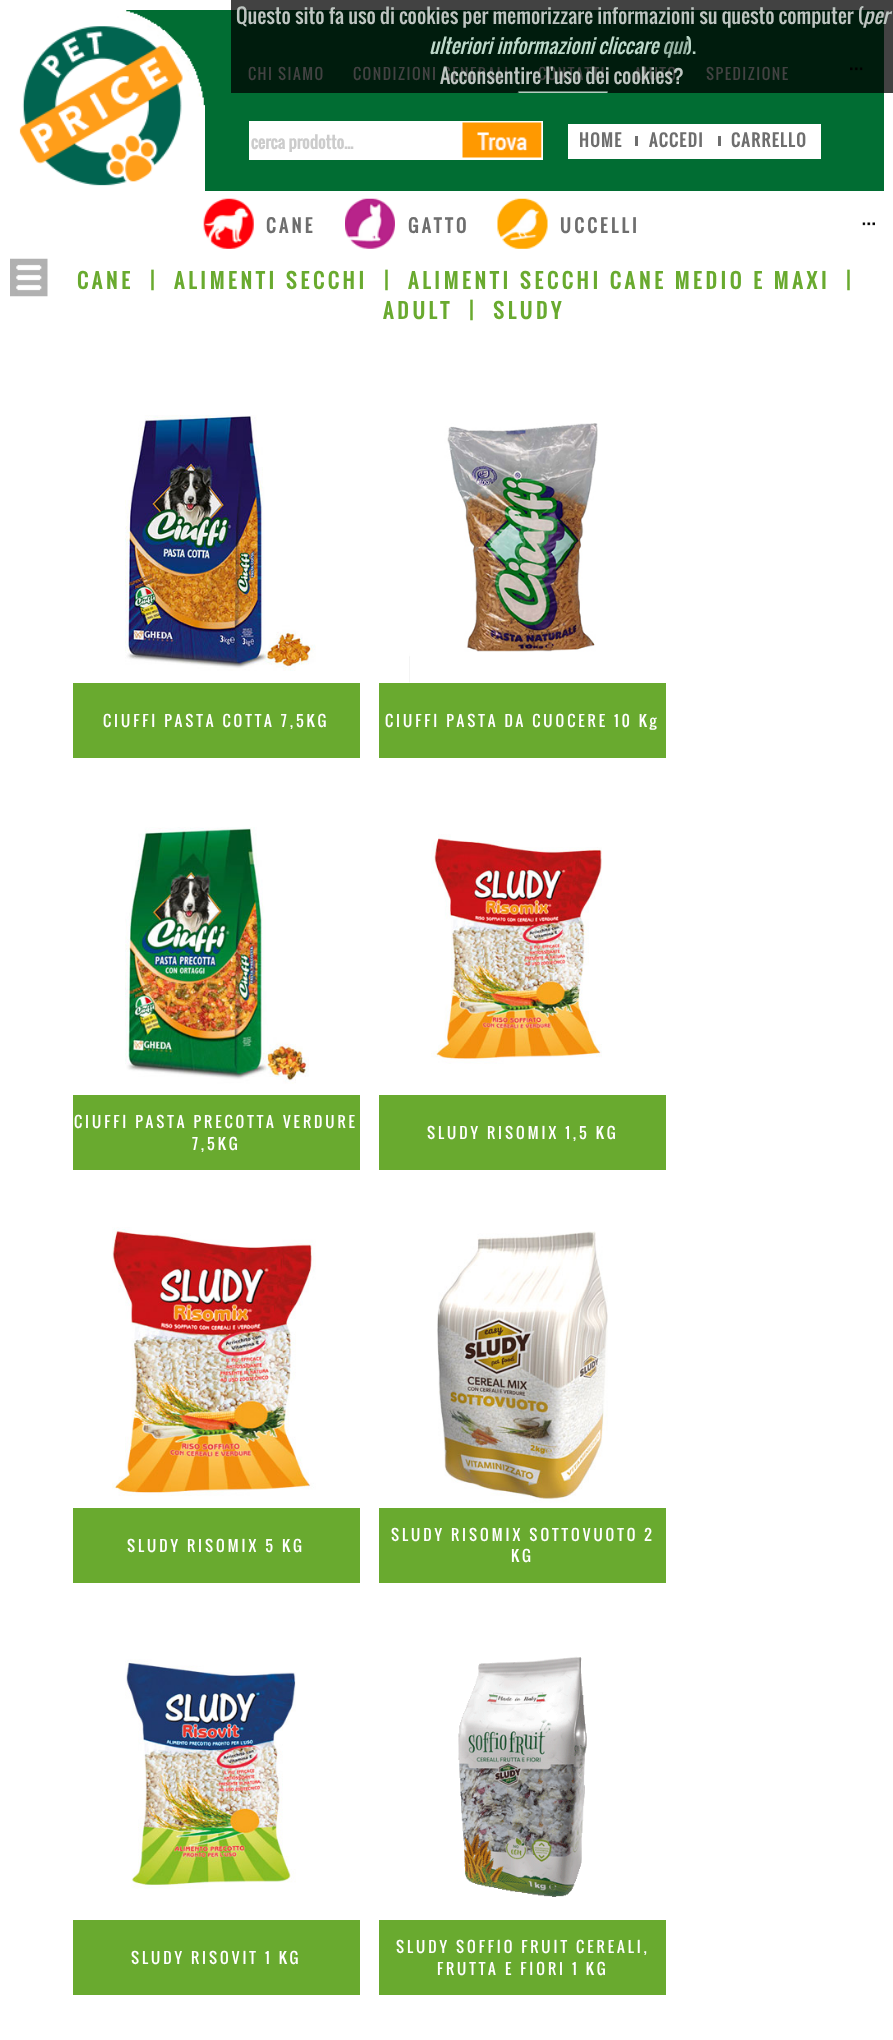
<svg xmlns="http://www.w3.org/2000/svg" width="893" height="2040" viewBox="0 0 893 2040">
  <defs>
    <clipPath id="clip1"><path d="M231 0h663v93H231z"/></clipPath>
  </defs>
  <rect width="100%" height="100%" fill="#fff"/>
  <path d="M231 0h662v93H231z" fill="#424242"/>
  <path d="M126 10h758v181H126z" fill="#016d33"/>
  <path d="M231 10h653v83H231z" fill="#001c0d"/>
  <path d="M518 92h90v1H518z" fill="#a6c1b2"/>
  <image x="517" y="92" width="90" height="1" href="img/1.png"/>
  <path d="M249 121h294v39H249z" fill="#fff"/>
  <image x="462" y="122" width="80" height="36" href="img/4.png"/>
  <path d="M568 124h253v35H568z" fill="#fff"/>
  <g clip-path="url(#clip1)">
    <path d="M518.5 91.5h89v33H518.5z" fill="none" stroke="#5e7a6b"/>
  </g>
  <image x="10" y="10" width="195" height="181" href="img/2.png"/>
  <image x="850" y="67" width="13" height="4" href="img/3.png"/>
  <path d="M635 136h3v10H635z" fill="#6e6e6e"/>
  <path d="M718 136h3v10H718z" fill="#6e6e6e"/>
  <image x="203" y="198" width="51" height="51" href="img/5.png"/>
  <image x="345" y="198" width="50" height="51" href="img/6.png"/>
  <image x="497" y="198" width="51" height="51" href="img/7.png"/>
  <image x="862" y="222" width="13" height="4" href="img/8.png"/>
  <image x="10" y="258" width="38" height="39" href="img/9.png"/>
  <image x="125" y="415" width="191" height="256" href="img/10.png"/>
  <path d="M73 683h287v75H73z" fill="#69aa2f"/>
  <image x="409" y="423" width="189" height="260" href="img/11.png"/>
  <path d="M379 683h287v75H379z" fill="#69aa2f"/>
  <image x="125" y="827" width="184" height="257" href="img/12.png"/>
  <path d="M73 1095h287v75H73z" fill="#69aa2f"/>
  <image x="431" y="834" width="171" height="230" href="img/13.png"/>
  <path d="M379 1095h287v75H379z" fill="#69aa2f"/>
  <image x="112" y="1227" width="204" height="269" href="img/14.png"/>
  <path d="M73 1508h287v75H73z" fill="#69aa2f"/>
  <image x="437" y="1231" width="171" height="272" href="img/15.png"/>
  <path d="M379 1508h287v75H379z" fill="#69aa2f"/>
  <image x="125" y="1659" width="171" height="230" href="img/16.png"/>
  <path d="M73 1920h287v75H73z" fill="#69aa2f"/>
  <image x="458" y="1656" width="129" height="241" href="img/17.png"/>
  <path d="M379 1920h287v75H379z" fill="#69aa2f"/>
  <text x="236" y="24" font-family="Oswald" font-size="20" fill="#bec5c1">Questo sito fa uso di cookies per memorizzare informazioni su questo computer (</text>
  <text x="863" y="24" font-family="Oswald" font-size="20" font-style="italic" fill="#bec5c1">per</text>
  <text x="429" y="54" font-family="Oswald" font-size="20" font-style="italic" fill="#bdd9ca">ulteriori informazioni cliccare</text>
  <text x="662" y="54" font-family="Oswald" font-size="20" font-style="italic" fill="#97b3a4">qui</text>
  <text x="686" y="54" font-family="Oswald" font-size="20" fill="#bdd9ca">).</text>
  <g font-family="Oswald" font-size="15" letter-spacing="1.5" fill="#424242">
    <text x="248" y="80">CHI SIAMO</text>
    <text x="353" y="80">CONDIZIONI GENERALI</text>
    <text x="538" y="80">CONTATTI</text>
    <text x="634" y="80">AIUTO</text>
  </g>
  <text x="440" y="84" font-family="Oswald" font-size="20" fill="#bec5c1">Acconsentire l'uso dei cookies?</text>
  <text x="706" y="80" font-family="Oswald" font-size="15" letter-spacing="1.5" fill="#424242">SPEDIZIONE</text>
  <text x="251" y="149" font-family="Oswald" font-size="16.25" font-weight="bold" fill="#ccc">cerca prodotto...</text>
  <g font-family="Oswald" font-size="16.25" font-weight="bold" letter-spacing="1.5" fill="#6e6e6e">
    <text x="579" y="147">HOME</text>
    <text x="649" y="147">ACCEDI</text>
    <text x="731" y="147">CARRELLO</text>
  </g>
  <g font-family="Oswald" font-size="17.5" font-weight="bold" letter-spacing="3.5" fill="#6e6e6e">
    <text x="266" y="233">CANE</text>
    <text x="408" y="233">GATTO</text>
    <text x="560" y="233">UCCELLI</text>
  </g>
  <g font-family="Oswald" font-size="20" font-weight="bold" letter-spacing="4" fill="#69aa2f">
    <text x="77" y="289">CANE</text>
    <text x="150" y="289">|</text>
    <text x="174" y="289">ALIMENTI SECCHI</text>
    <text x="384" y="289">|</text>
    <text x="408" y="289">ALIMENTI SECCHI CANE MEDIO E MAXI</text>
    <text x="846" y="289">|</text>
    <text x="383" y="319">ADULT</text>
    <text x="469" y="319">|</text>
    <text x="493" y="319">SLUDY</text>
  </g>
  <g font-family="Oswald" font-size="15" letter-spacing="3" fill="#fff">
    <text x="103" y="727">CIUFFI PASTA COTTA 7,5KG</text>
    <text x="385" y="727">CIUFFI PASTA DA CUOCERE 10 Kg</text>
    <text x="74" y="1128">CIUFFI PASTA PRECOTTA VERDURE</text>
    <text x="192" y="1150">7,5KG</text>
    <text x="427" y="1139">SLUDY RISOMIX 1,5 KG</text>
    <text x="127" y="1552">SLUDY RISOMIX 5 KG</text>
    <text x="391" y="1541">SLUDY RISOMIX SOTTOVUOTO 2</text>
    <text x="511" y="1562">KG</text>
    <text x="131" y="1964">SLUDY RISOVIT 1 KG</text>
    <text x="396" y="1953">SLUDY SOFFIO FRUIT CEREALI,</text>
    <text x="437" y="1975">FRUTTA E FIORI 1 KG</text>
  </g>
</svg>
